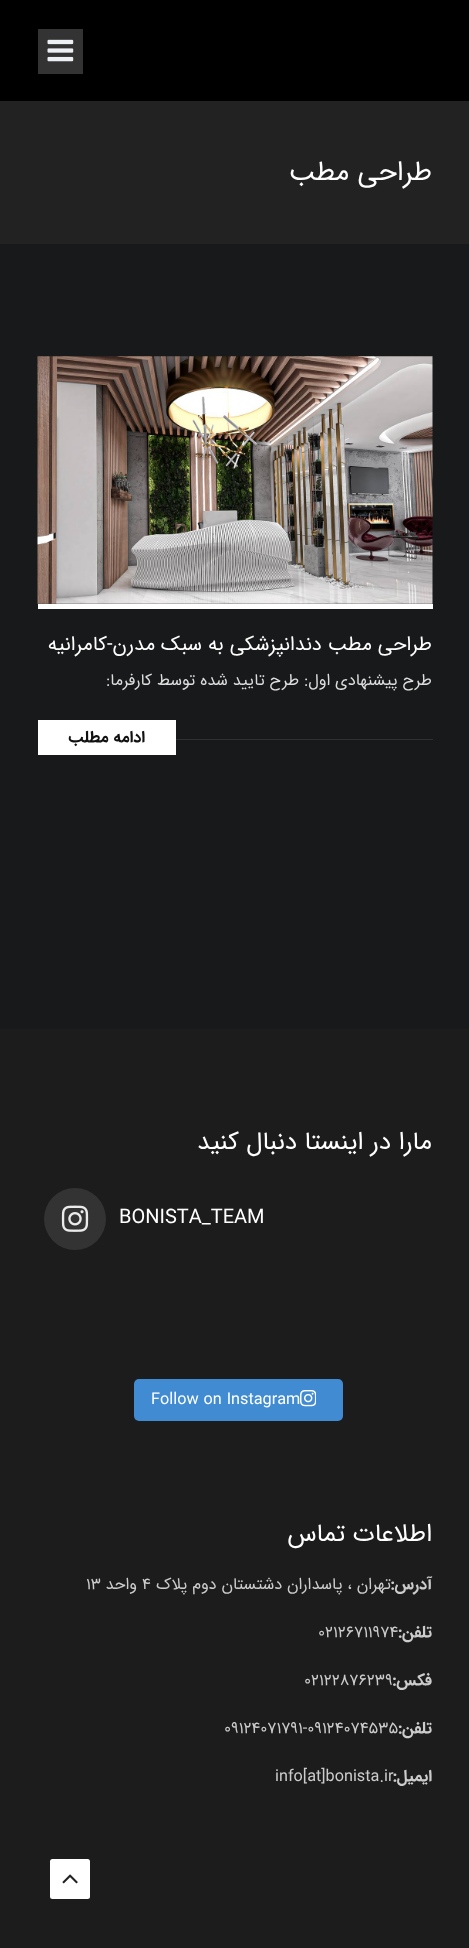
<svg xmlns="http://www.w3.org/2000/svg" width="469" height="1948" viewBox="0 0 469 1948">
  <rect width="100%" height="100%" fill="#000"/>
  <path d="M38 29h45v45H38z" fill="#333"/>
  <image x="47" y="39" width="27" height="23" href="img/1.png"/>
  <path d="M0 101h469v143H0z" fill="#222"/>
  <path d="M0 244h469v785H0z" fill="#18191b"/>
  <path d="M176 739h257v1H176z" fill="#2f3032"/>
  <path d="M38 604h395v5H38z" fill="#fff"/>
  <image x="37" y="356" width="396" height="248" href="img/2.png"/>
  <path d="M38 720h138v35H38z" fill="#fff"/>
  <path d="M0 1029h469v919H0z" fill="#1c1c1c"/>
  <circle cx="75" cy="1219" r="31" fill="#333"/>
  <image x="61" y="1205" width="28" height="27" href="img/3.png"/>
  <rect x="134" y="1379" width="209" height="42" rx="5" fill="#408bd1"/>
  <image x="300" y="1390" width="16" height="17" href="img/4.png"/>
  <rect x="50" y="1859" width="40" height="40" rx="2.5" fill="#fff"/>
  <image x="62" y="1874" width="16" height="10" href="img/5.png"/>
  <text x="432" y="180" font-family="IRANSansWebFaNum" font-size="27.5" direction="rtl" fill="#fff">طراحی مطب</text>
  <text x="432" y="650" font-family="IRANSansWebFaNum" font-size="20" direction="rtl" fill="#fff">طراحی مطب دندانپزشکی به سبک مدرن-کامرانیه</text>
  <text x="432" y="685" font-family="IRANSansWebFaNum" font-size="16.25" direction="rtl" fill="#ddd">طرح پیشنهادی اول: طرح تایید شده توسط کارفرما:</text>
  <text x="145" y="742" font-family="IRANSansWebFaNum" font-size="16.25" font-weight="bold" direction="rtl" fill="#111">ادامه مطلب</text>
  <text x="432" y="1149" font-family="IRANSansWebFaNum" font-size="25" direction="rtl" fill="#fff">مارا در اينستا دنبال كنيد</text>
  <text x="119" y="1223" font-family="IRANSansWebFaNum" font-size="20" fill="#fff">BONISTA_TEAM</text>
  <text x="151" y="1404" font-family="IRANSansWebFaNum" font-size="16.25" fill="#fff">Follow on Instagram</text>
  <text x="432" y="1541" font-family="IRANSansWebFaNum" font-size="25" direction="rtl" fill="#fff">اطلاعات تماس</text>
  <text x="432" y="1589" font-family="IRANSansWebFaNum" font-size="16.25" font-weight="bold" direction="rtl" fill="#ccc">آدرس:</text>
  <text x="391" y="1589" font-family="IRANSansWebFaNum" font-size="16.25" direction="rtl" fill="#ccc">تهران ، پاسداران دشتستان دوم پلاک</text>
  <text x="142" y="1589" font-family="IRANSansWebFaNum" font-size="16.25" fill="#ccc">4</text>
  <text x="137" y="1589" font-family="IRANSansWebFaNum" font-size="16.25" direction="rtl" fill="#ccc">واحد</text>
  <text x="86" y="1589" font-family="IRANSansWebFaNum" font-size="16.25" fill="#ccc">13</text>
  <text x="432" y="1637" font-family="IRANSansWebFaNum" font-size="16.25" font-weight="bold" direction="rtl" fill="#ccc">تلفن:</text>
  <text x="318" y="1637" font-family="IRANSansWebFaNum" font-size="16.25" fill="#ccc">02126711974</text>
  <text x="432" y="1685" font-family="IRANSansWebFaNum" font-size="16.25" font-weight="bold" direction="rtl" fill="#ccc">فکس:</text>
  <text x="304" y="1685" font-family="IRANSansWebFaNum" font-size="16.25" fill="#ccc">02122876239</text>
  <text x="432" y="1733" font-family="IRANSansWebFaNum" font-size="16.25" font-weight="bold" direction="rtl" fill="#ccc">تلفن:</text>
  <text x="224" y="1733" font-family="IRANSansWebFaNum" font-size="16.25" fill="#ccc">09124071791-09124074535</text>
  <text x="432" y="1781" font-family="IRANSansWebFaNum" font-size="16.25" font-weight="bold" direction="rtl" fill="#ccc">ایمیل:</text>
  <text x="275" y="1781" font-family="IRANSansWebFaNum" font-size="16.25" fill="#ccc">info[at]bonista.ir</text>
</svg>
